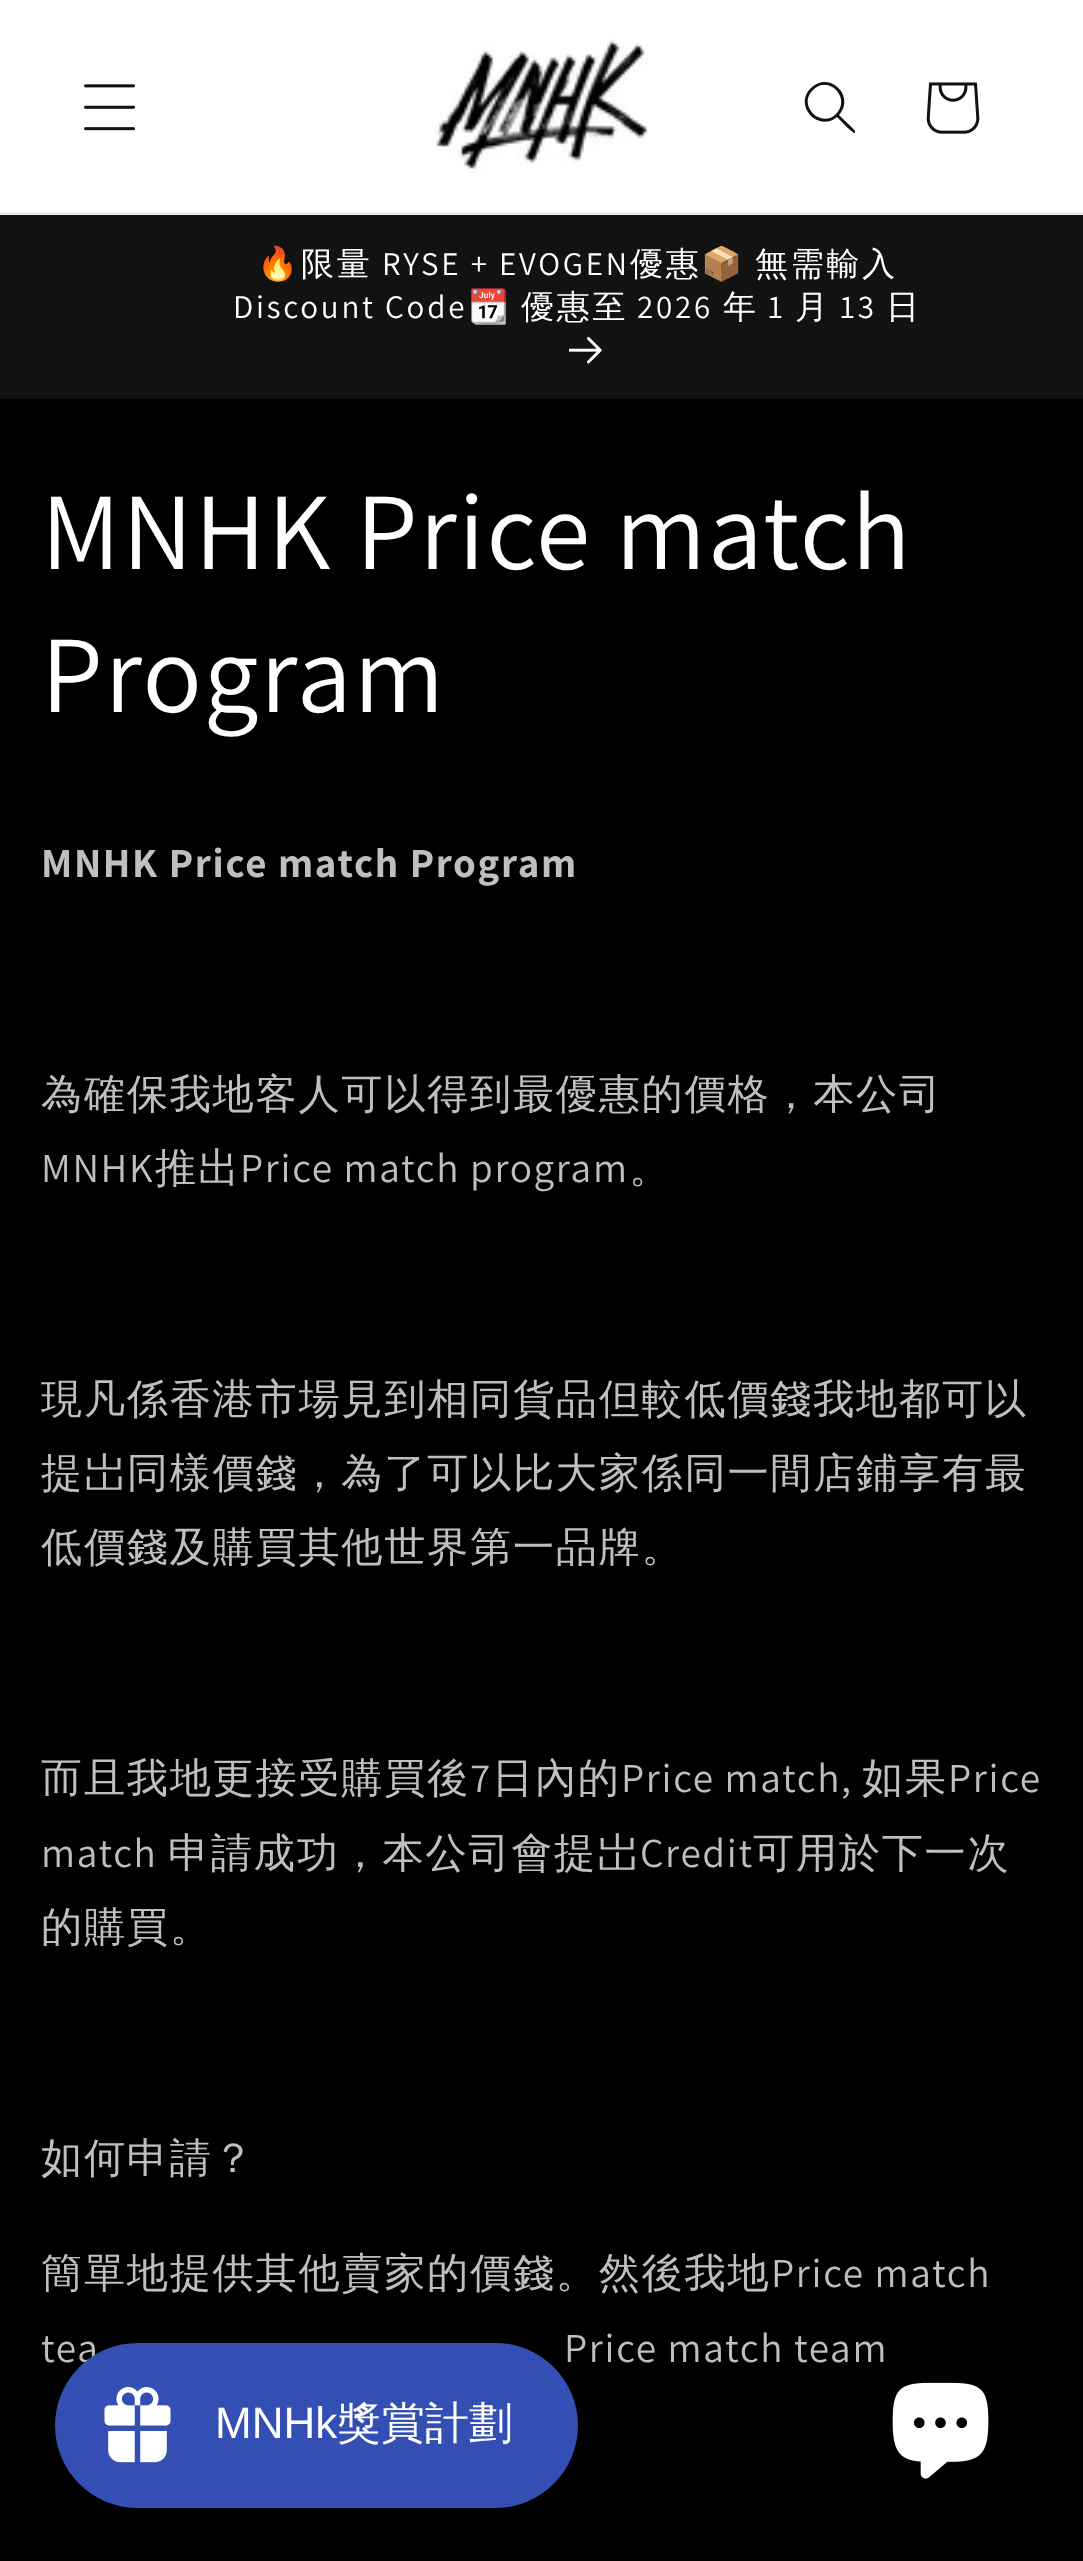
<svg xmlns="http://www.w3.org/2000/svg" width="1083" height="2561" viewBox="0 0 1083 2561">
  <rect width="100%" height="100%" fill="#000"/>
  <path d="M0 0h1083v212H0z" fill="#fff"/>
  <path d="M0 212h1083v3H0z" fill="#ececec"/>
  <image x="84" y="84" width="52" height="47" href="img/1.png"/>
  <image x="435" y="33" width="213" height="140" href="img/2.png"/>
  <path d="M836 114C821 129 797 105 813 90C828 74 852 98 836 114ZM837 117C818 133 793 105 811 88C829 70 856 96 839 115C841 117 855 130 855 131V133C853 134 839 119 837 117Z" fill="#121212" fill-rule="evenodd"/>
  <image x="926" y="82" width="54" height="52" href="img/3.png"/>
  <path d="M0 215h1083v184H0z" fill="#121212"/>
  <image x="569" y="337" width="33" height="27" href="img/4.png"/>
  <rect x="55" y="2349" width="523" height="165" rx="82.5" fill="#00000026" filter="blur(41px)"/>
  <image x="892" y="2382" width="97" height="97" href="img/6.png"/>
  <text x="257" y="275" font-family="Noto Color Emoji" font-size="33" letter-spacing="2.75" fill="#fff">🔥</text>
  <text x="301" y="275" font-family="WenQuanYi Zen Hei" font-size="33" font-weight="500" letter-spacing="2.75" fill="#fff">限量</text>
  <text x="382" y="275" font-family="Assistant" font-size="33" letter-spacing="2.75" fill="#fff">RYSE + EVOGEN</text>
  <text x="630" y="275" font-family="WenQuanYi Zen Hei" font-size="33" font-weight="500" letter-spacing="2.75" fill="#fff">優惠</text>
  <text x="701" y="275" font-family="Noto Color Emoji" font-size="33" letter-spacing="2.75" fill="#fff">📦</text>
  <text x="755" y="275" font-family="WenQuanYi Zen Hei" font-size="33" font-weight="500" letter-spacing="2.75" fill="#fff">無需輸入</text>
  <text x="233" y="318" font-family="Assistant" font-size="33" letter-spacing="2.75" fill="#fff">Discount Code</text>
  <text x="468" y="318" font-family="Noto Color Emoji" font-size="33" letter-spacing="2.75" fill="#fff">📆</text>
  <text x="521" y="318" font-family="WenQuanYi Zen Hei" font-size="33" font-weight="500" letter-spacing="2.75" fill="#fff">優惠至</text>
  <text x="637" y="318" font-family="Assistant" font-size="33" letter-spacing="2.75" fill="#fff">2026</text>
  <text x="723" y="318" font-family="WenQuanYi Zen Hei" font-size="33" font-weight="500" letter-spacing="2.75" fill="#fff">年</text>
  <text x="768" y="318" font-family="Assistant" font-size="33" letter-spacing="2.75" fill="#fff">1</text>
  <text x="795" y="318" font-family="WenQuanYi Zen Hei" font-size="33" font-weight="500" letter-spacing="2.75" fill="#fff">月</text>
  <text x="840" y="318" font-family="Assistant" font-size="33" letter-spacing="2.75" fill="#fff">13</text>
  <text x="886" y="318" font-family="WenQuanYi Zen Hei" font-size="33" font-weight="500" letter-spacing="2.75" fill="#fff">日</text>
  <g font-family="Assistant" font-size="110" letter-spacing="1.65" fill="#fff">
    <text x="41" y="569">MNHK Price match</text>
    <text x="41" y="712">Program</text>
  </g>
  <text x="41" y="877" font-family="Assistant" font-size="41.25" font-weight="bold" letter-spacing="1.65" fill="#bfbfbf">MNHK Price match Program</text>
  <text x="41" y="1108" font-family="WenQuanYi Zen Hei" font-size="41.25" font-weight="500" letter-spacing="1.65" fill="#bfbfbf">為確保我地客人可以得到最優惠的價格，本公司</text>
  <text x="41" y="1182" font-family="Assistant" font-size="41.25" letter-spacing="1.65" fill="#bfbfbf">MNHK</text>
  <text x="155" y="1182" font-family="WenQuanYi Zen Hei" font-size="41.25" font-weight="500" letter-spacing="1.65" fill="#bfbfbf">推出</text>
  <text x="240" y="1182" font-family="Assistant" font-size="41.25" letter-spacing="1.65" fill="#bfbfbf">Price match program</text>
  <g font-family="WenQuanYi Zen Hei" font-size="41.25" font-weight="500" letter-spacing="1.65" fill="#bfbfbf">
    <text x="629" y="1182">。</text>
    <text x="41" y="1413">現凡係香港市場見到相同貨品但較低價錢我地都可以</text>
    <text x="41" y="1487">提岀同樣價錢，為了可以比大家係同一間店鋪享有最</text>
    <text x="41" y="1561">低價錢及購買其他世界第一品牌。</text>
    <text x="41" y="1792">而且我地更接受購買後</text>
  </g>
  <text x="470" y="1792" font-family="Assistant" font-size="41.25" letter-spacing="1.65" fill="#bfbfbf">7</text>
  <text x="492" y="1792" font-family="WenQuanYi Zen Hei" font-size="41.25" font-weight="500" letter-spacing="1.65" fill="#bfbfbf">日內的</text>
  <text x="621" y="1792" font-family="Assistant" font-size="41.25" letter-spacing="1.65" fill="#bfbfbf">Price match,</text>
  <text x="862" y="1792" font-family="WenQuanYi Zen Hei" font-size="41.25" font-weight="500" letter-spacing="1.65" fill="#bfbfbf">如果</text>
  <g font-family="Assistant" font-size="41.25" letter-spacing="1.65" fill="#bfbfbf">
    <text x="948" y="1792">Price</text>
    <text x="41" y="1867">match</text>
  </g>
  <text x="168" y="1867" font-family="WenQuanYi Zen Hei" font-size="41.25" font-weight="500" letter-spacing="1.65" fill="#bfbfbf">申請成功，本公司會提岀</text>
  <text x="640" y="1867" font-family="Assistant" font-size="41.25" letter-spacing="1.65" fill="#bfbfbf">Credit</text>
  <g font-family="WenQuanYi Zen Hei" font-size="41.25" font-weight="500" letter-spacing="1.65" fill="#bfbfbf">
    <text x="753" y="1867">可用於下一次</text>
    <text x="41" y="1941">的購買。</text>
    <text x="41" y="2172">如何申請？</text>
    <text x="41" y="2287">簡單地提供其他賣家的價錢。然後我地</text>
  </g>
  <g font-family="Assistant" font-size="41.25" letter-spacing="1.65" fill="#bfbfbf">
    <text x="771" y="2287">Price match</text>
    <text x="41" y="2362">tea</text>
    <text x="564" y="2362">Price match team</text>
  </g>
  <rect x="55" y="2343" width="523" height="165" rx="82.5" fill="#334fb4"/>
  <image x="104" y="2387" width="67" height="76" href="img/5.png"/>
  <text x="215" y="2438" font-family="Liberation Sans" font-size="44" fill="#fff">MNHk</text>
  <text x="337" y="2438" font-family="WenQuanYi Zen Hei" font-size="44" font-weight="500" fill="#fff">獎賞計劃</text>
</svg>
